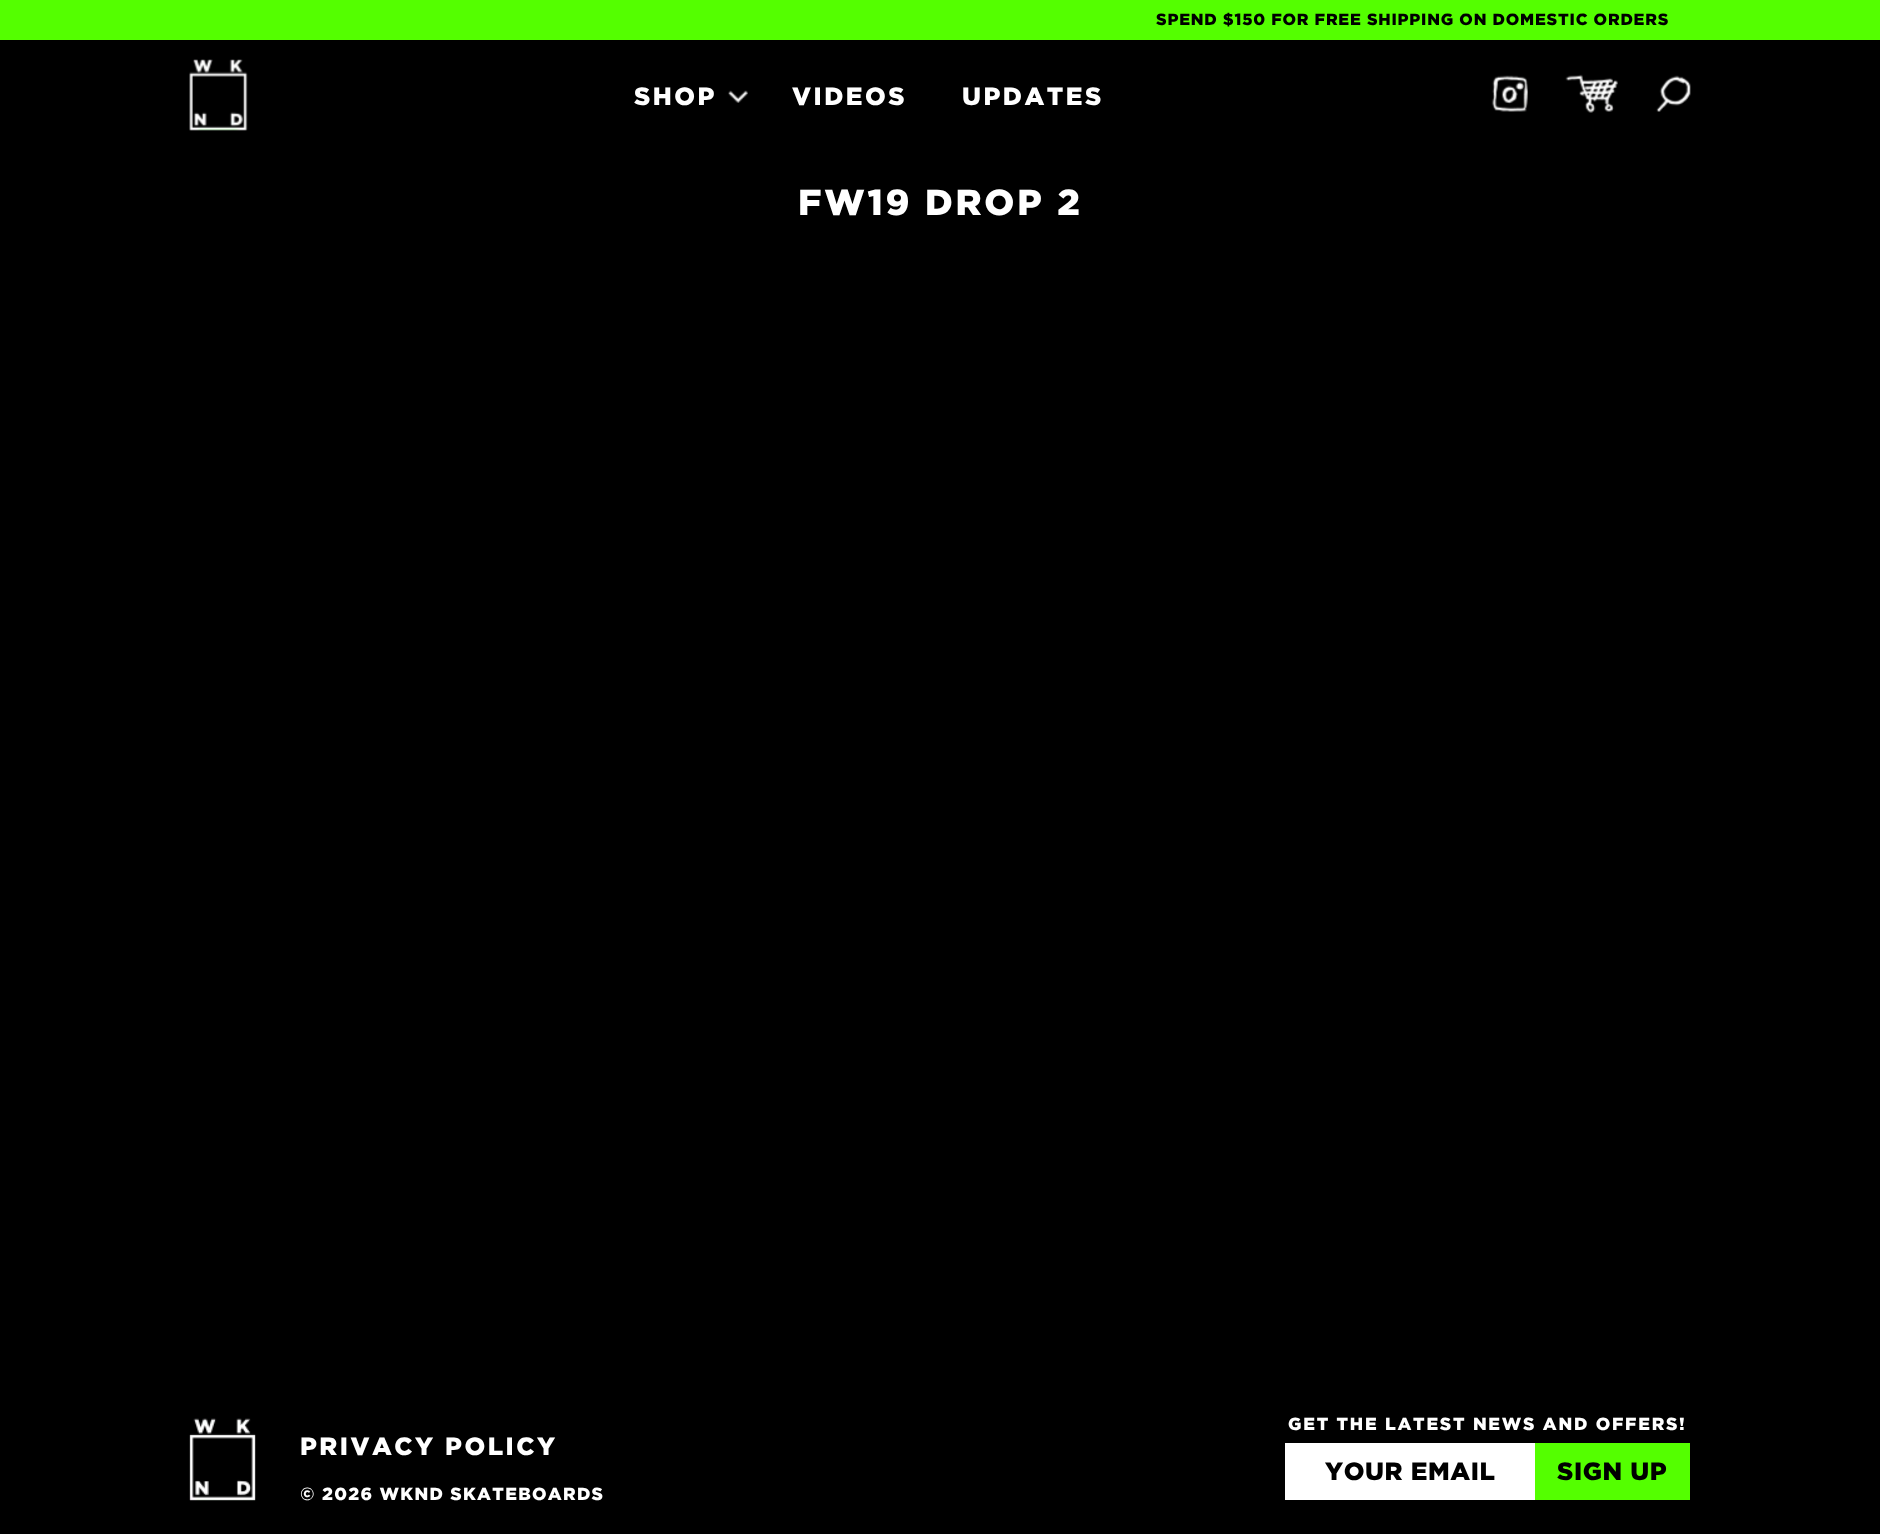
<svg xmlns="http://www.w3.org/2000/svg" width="1880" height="1534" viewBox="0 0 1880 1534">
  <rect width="100%" height="100%" fill="#000"/>
  <path d="M0 0h1880v40H0z" fill="#54ff00"/>
  <image x="189" y="59" width="59" height="72" href="img/1.png"/>
  <image x="728" y="90" width="20" height="13" href="img/2.png"/>
  <image x="1491" y="75" width="37" height="37" href="img/3.png"/>
  <image x="1565" y="74" width="53" height="39" href="img/4.png"/>
  <image x="1656" y="75" width="35" height="37" href="img/5.png"/>
  <image x="189" y="1418" width="67" height="83" href="img/6.png"/>
  <path d="M1285 1443h250v57H1285z" fill="#fff"/>
  <path d="M1535 1443h155v57H1535z" fill="#54ff00"/>
  <text x="1156" y="25" font-family="Gotham" font-size="16.25" font-weight="900" letter-spacing="0.8" fill="#000">SPEND $150 FOR FREE SHIPPING ON DOMESTIC ORDERS</text>
  <g font-family="Gotham" font-size="25" font-weight="900" letter-spacing="2.5" fill="#fff">
    <text x="634" y="105">SHOP</text>
    <text x="792" y="105">VIDEOS</text>
    <text x="962" y="105">UPDATES</text>
  </g>
  <text x="798" y="215" font-family="Gotham" font-size="36.25" font-weight="900" letter-spacing="2.75" fill="#fff">FW19 DROP 2</text>
  <text x="300" y="1455" font-family="Gotham" font-size="25" font-weight="900" letter-spacing="2.5" fill="#fff">PRIVACY POLICY</text>
  <text x="1288" y="1430" font-family="Gotham" font-size="17.5" font-weight="900" letter-spacing="1.75" fill="#fff">GET THE LATEST NEWS AND OFFERS!</text>
  <g font-family="Gotham" font-size="25" font-weight="900" letter-spacing="0.6" fill="#000">
    <text x="1325" y="1480">YOUR EMAIL</text>
    <text x="1557" y="1480">SIGN UP</text>
  </g>
  <text x="300" y="1500" font-family="Gotham" font-size="17.5" font-weight="900" letter-spacing="1.3" fill="#fff">© 2026 WKND SKATEBOARDS</text>
</svg>
